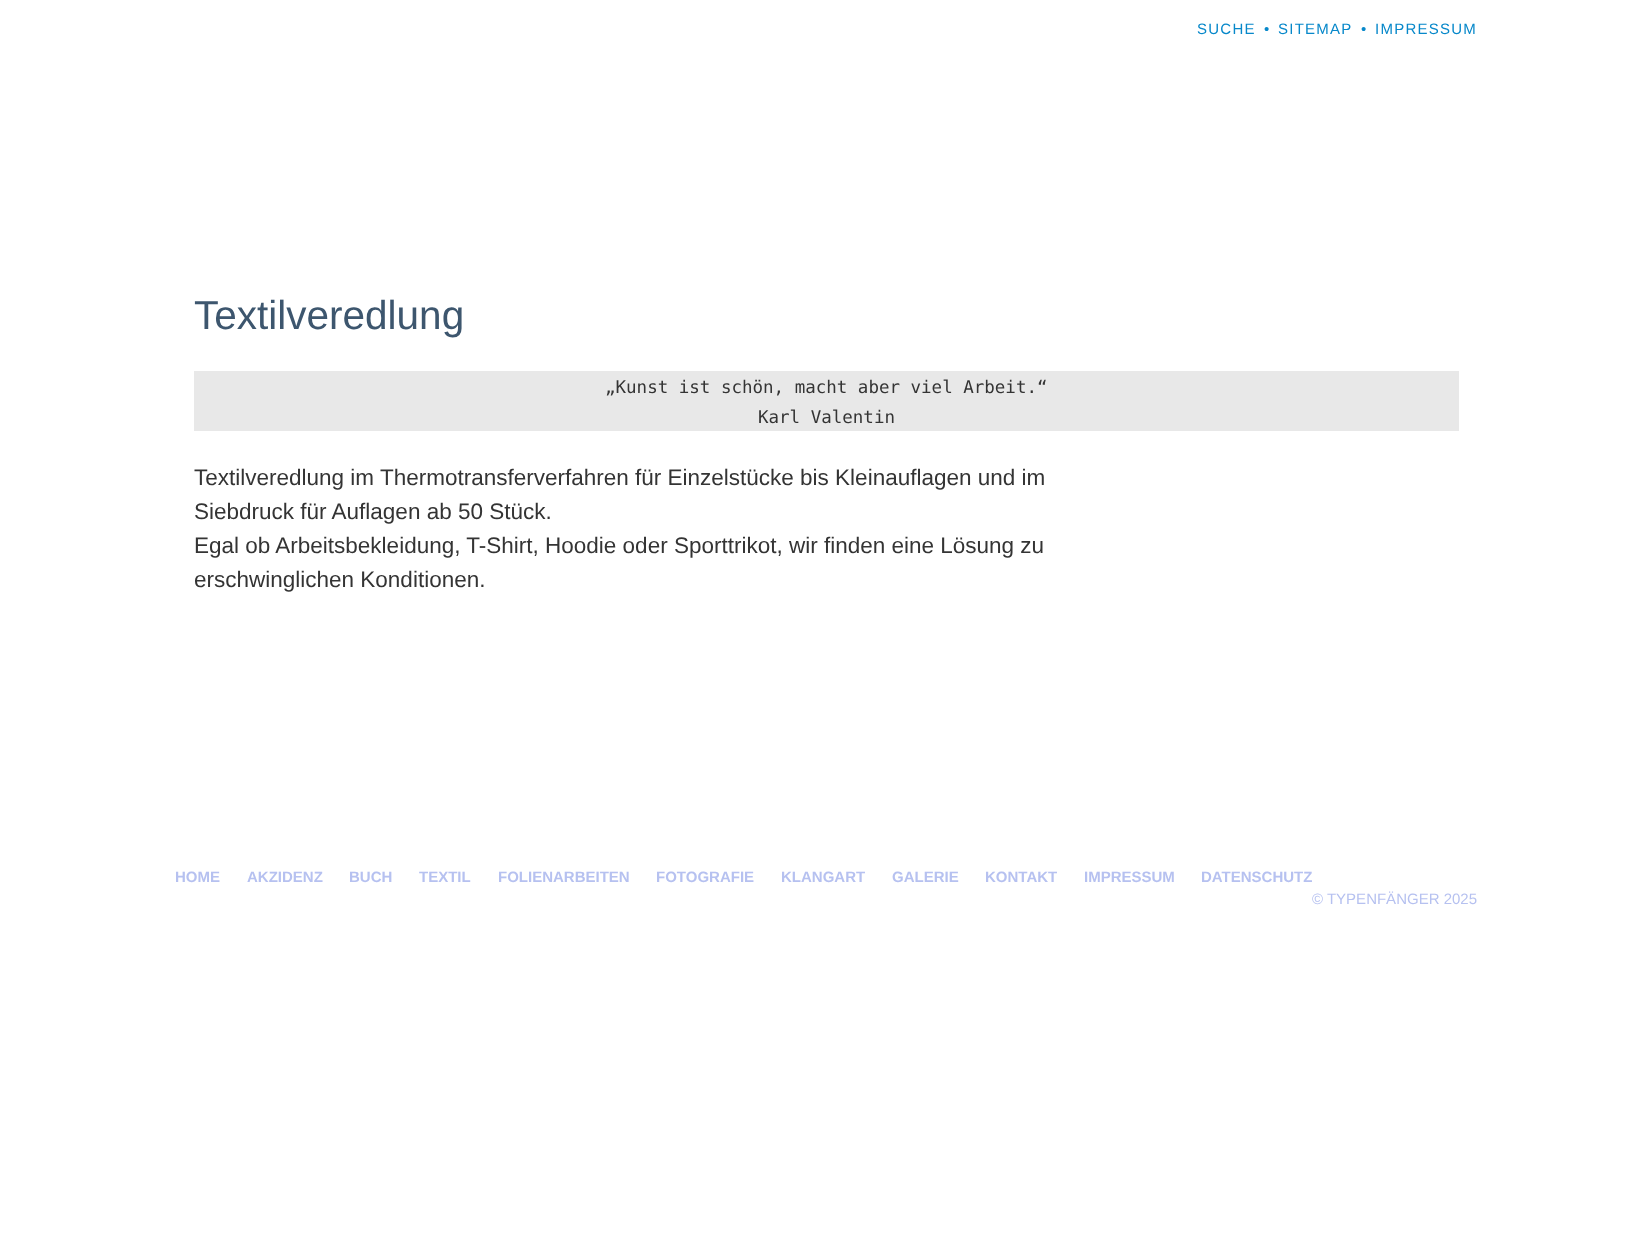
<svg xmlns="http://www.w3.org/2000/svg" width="1652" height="1258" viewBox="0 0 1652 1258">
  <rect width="100%" height="100%" fill="#fff"/>
  <path d="M194 371h1265v60H194z" fill="#e8e8e8"/>
  <g font-family="Liberation Sans" font-size="15" letter-spacing="1.25" fill="#0788ca">
    <text x="1197" y="34">SUCHE</text>
    <text x="1264" y="34">•</text>
    <text x="1278" y="34">SITEMAP</text>
    <text x="1361" y="34">•</text>
    <text x="1375" y="34">IMPRESSUM</text>
  </g>
  <text x="194" y="329" font-family="Liberation Sans" font-size="40.5" fill="#3d566e">Textilveredlung</text>
  <g font-family="DejaVu Sans Mono" font-size="17.5" fill="#343434">
    <text x="605" y="393">„Kunst ist schön, macht aber viel Arbeit.“</text>
    <text x="758" y="423">Karl Valentin</text>
  </g>
  <g font-family="Liberation Sans" font-size="22.5" fill="#343434">
    <text x="194" y="485">Textilveredlung im Thermotransferverfahren für Einzelstücke bis Kleinauflagen und im</text>
    <text x="194" y="519">Siebdruck für Auflagen ab 50 Stück.</text>
    <text x="194" y="553">Egal ob Arbeitsbekleidung, T-Shirt, Hoodie oder Sporttrikot, wir finden eine Lösung zu</text>
    <text x="194" y="587">erschwinglichen Konditionen.</text>
  </g>
  <g font-family="Liberation Sans" font-size="15" font-weight="bold" fill="#b6c1f0">
    <text x="175" y="882">HOME</text>
    <text x="247" y="882">AKZIDENZ</text>
    <text x="349" y="882">BUCH</text>
    <text x="419" y="882">TEXTIL</text>
    <text x="498" y="882">FOLIENARBEITEN</text>
    <text x="656" y="882">FOTOGRAFIE</text>
    <text x="781" y="882">KLANGART</text>
    <text x="892" y="882">GALERIE</text>
    <text x="985" y="882">KONTAKT</text>
    <text x="1084" y="882">IMPRESSUM</text>
    <text x="1201" y="882">DATENSCHUTZ</text>
  </g>
  <text x="1312" y="904" font-family="Liberation Sans" font-size="15" fill="#b6c1f0">© TYPENFÄNGER 2025</text>
</svg>
